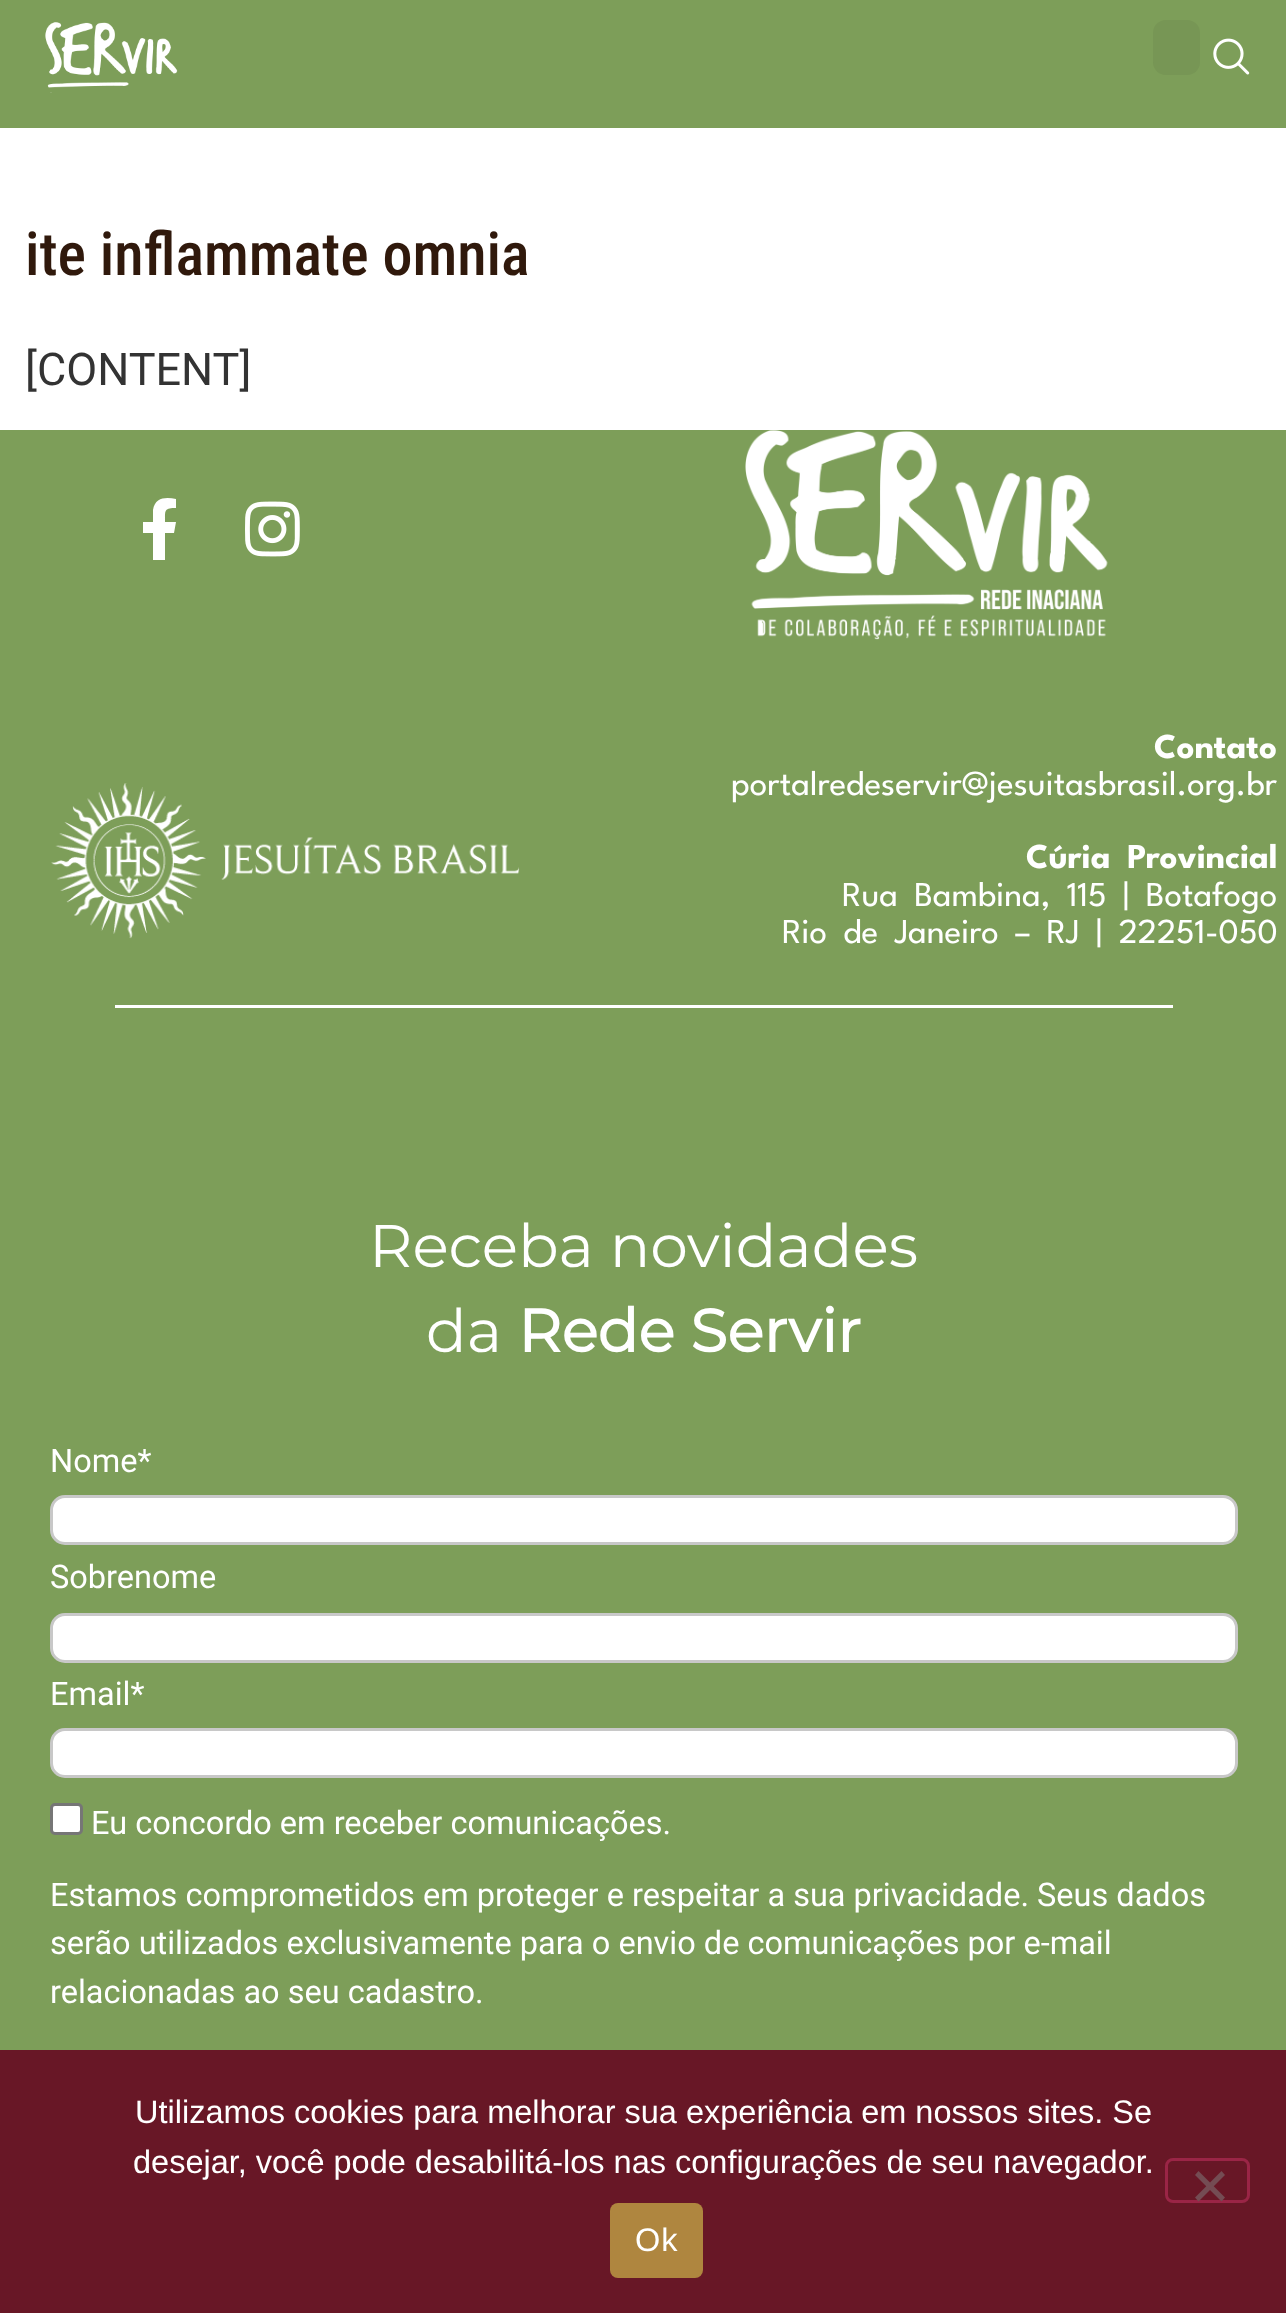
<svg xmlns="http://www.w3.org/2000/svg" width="1286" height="2313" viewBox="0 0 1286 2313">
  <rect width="100%" height="100%" fill="#fff"/>
  <path d="M0 0h1286v128H0z" fill="#7d9e59"/>
  <image x="45" y="22" width="133" height="71" href="img/1.png"/>
  <rect x="1153" y="20" width="47" height="55" rx="13" fill="#779655"/>
  <image x="1213" y="38" width="37" height="37" href="img/2.png"/>
  <path d="M0 430h1286v1620H0z" fill="#7d9e59"/>
  <path d="M174 533H165V560H153V533H143V522H153V510C155 497 166 497 176 499V508C164 508 165 510 165 522H176Z" fill="#fff"/>
  <image x="245" y="501" width="55" height="56" href="img/3.png"/>
  <image x="745" y="430" width="363" height="210" href="img/4.png"/>
  <image x="51" y="783" width="469" height="156" href="img/5.png"/>
  <path d="M115 1005h1058v3H115z" fill="#fff"/>
  <rect x="51.5" y="1496.5" width="1185" height="47" rx="13.5" fill="#fff" stroke="#c8c8c8" stroke-width="3"/>
  <rect x="51.5" y="1614.5" width="1185" height="47" rx="13.5" fill="#fff" stroke="#c8c8c8" stroke-width="3"/>
  <rect x="51.5" y="1729.5" width="1185" height="47" rx="13.5" fill="#fff" stroke="#c8c8c8" stroke-width="3"/>
  <rect x="51.5" y="1804.5" width="30" height="29" rx="3.5" fill="#fff" stroke="#767676" stroke-width="3"/>
  <path d="M0 2050h1286v263H0z" fill="#681726"/>
  <rect x="1166.5" y="2159.5" width="82" height="42" rx="6.5" fill="none" stroke="#9a2546" stroke-width="3"/>
  <path d="M1221.5 2171L1225 2175L1198.5 2201.5L1195 2197.5Z" fill="#744c53"/>
  <path d="M1195 2175L1198.5 2171L1225 2197.5L1221.5 2201.5Z" fill="#744c53"/>
  <rect x="610" y="2203" width="93" height="75" rx="8" fill="#af863f"/>
  <text x="25" y="275" font-family="Roboto Condensed" font-size="60" font-weight="500" fill="#30190c">ite inflammate omnia</text>
  <text x="25" y="385" font-family="Roboto" font-size="45" fill="#333">[CONTENT]</text>
  <text x="1154" y="758" font-family="League Spartan" font-size="35" font-weight="bold" fill="#fff">Contato</text>
  <text x="731" y="795" font-family="League Spartan" font-size="35" fill="#fff">portalredeservir@jesuitasbrasil.org.br</text>
  <text x="1026" y="868" word-spacing="7.5" font-family="League Spartan" font-size="35" font-weight="bold" fill="#fff">Cúria Provincial</text>
  <g font-family="League Spartan" font-size="35" fill="#fff">
    <text x="842" y="906" word-spacing="7.5">Rua Bambina, 115 | Botafogo</text>
    <text x="782" y="943" word-spacing="7.5">Rio de Janeiro – RJ | 22251-050</text>
  </g>
  <g font-family="Montserrat" font-size="60" font-weight="100" fill="#fff">
    <text x="369" y="1267">Receba novidades</text>
    <text x="426" y="1352">da</text>
  </g>
  <text x="518" y="1352" font-family="Montserrat" font-size="60" font-weight="bold" fill="#fff">Rede Servir</text>
  <g font-family="Roboto" font-size="32.5" fill="#fff">
    <text x="50" y="1472">Nome*</text>
    <text x="50" y="1588">Sobrenome</text>
    <text x="50" y="1705">Email*</text>
    <text x="91" y="1834">Eu concordo em receber comunicações.</text>
    <text x="50" y="1906">Estamos comprometidos em proteger e respeitar a sua privacidade. Seus dados</text>
    <text x="50" y="1954">serão utilizados exclusivamente para o envio de comunicações por e-mail</text>
    <text x="50" y="2003">relacionadas ao seu cadastro.</text>
  </g>
  <g font-family="Liberation Sans" font-size="32.5" fill="#fff">
    <text x="135" y="2123">Utilizamos cookies para melhorar sua experiência em nossos sites. Se</text>
    <text x="133" y="2173">desejar, você pode desabilitá-los nas configurações de seu navegador.</text>
  </g>
  <text x="635" y="2251" font-family="Liberation Sans" font-size="32.5" letter-spacing="1" fill="#fff">Ok</text>
</svg>
